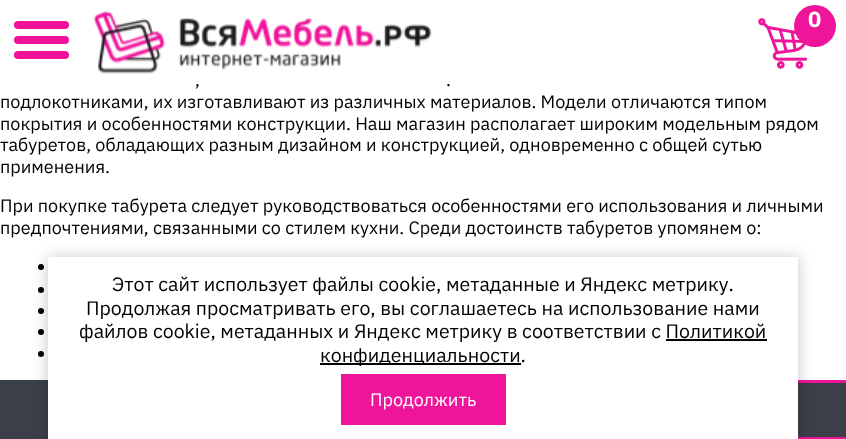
<svg xmlns="http://www.w3.org/2000/svg" width="846" height="439" viewBox="0 0 846 439">
  <rect width="100%" height="100%" fill="#fff"/>
  <rect x="14" y="21" width="55" height="8" rx="4" fill="#ef1299"/>
  <rect x="14" y="36" width="55" height="8" rx="4" fill="#ef1299"/>
  <rect x="14" y="51" width="55" height="8" rx="4" fill="#ef1299"/>
  <image x="93" y="11" width="339" height="63" href="img/1.png"/>
  <circle cx="815" cy="26" r="21" fill="#ef159a"/>
  <image x="758" y="18" width="50" height="51" href="img/2.png"/>
  <circle cx="41" cy="267" r="3" fill="#000"/>
  <circle cx="41" cy="290" r="3" fill="#000"/>
  <circle cx="41" cy="311" r="3" fill="#000"/>
  <circle cx="41" cy="332" r="3" fill="#000"/>
  <circle cx="41" cy="354" r="3" fill="#000"/>
  <path d="M0 380h846v59H0z" fill="#3a3f4a"/>
  <path d="M592.5 381.5h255v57H592.5z" fill="none" stroke="#f0149a" stroke-width="3"/>
  <path d="M48 258h750v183H48z" fill="#0000003b" filter="blur(7.5px)"/>
  <path d="M48 257h750v182H48z" fill="#fff"/>
  <path d="M666 339h101v2H666z" fill="#000"/>
  <path d="M320 363h201v2H320z" fill="#000"/>
  <path d="M341 374h165v51H341z" fill="#ef159a"/>
  <text x="808" y="27" font-family="IBM Plex Sans" font-size="22" font-weight="bold" fill="#fff">0</text>
  <g font-family="IBM Plex Sans" font-size="18" fill="#000">
    <text x="195" y="86">,</text>
    <text x="446" y="86">.</text>
  </g>
  <path d="M197 83h252v1H197z" fill="#fff"/>
  <g font-family="IBM Plex Sans" font-size="18" fill="#000">
    <text x="0" y="108">подлокотниками, их изготавливают из различных материалов. Модели отличаются типом</text>
    <text x="0" y="130">покрытия и особенностями конструкции. Наш магазин располагает широким модельным рядом</text>
    <text x="0" y="151">табуретов, обладающих разным дизайном и конструкцией, одновременно с общей сутью</text>
    <text x="0" y="173">применения.</text>
    <text x="0" y="212">При покупке табурета следует руководствоваться особенностями его использования и личными</text>
    <text x="0" y="234">предпочтениями, связанными со стилем кухни. Среди достоинств табуретов упомянем о:</text>
  </g>
  <g font-family="IBM Plex Sans" font-size="19.5" fill="#000">
    <text x="112" y="291">Этот сайт использует файлы cookie, метаданные и Яндекс метрику.</text>
    <text x="86" y="315">Продолжая просматривать его, вы соглашаетесь на использование нами</text>
    <text x="79" y="338">файлов cookie, метаданных и Яндекс метрику в соответствии с Политикой</text>
    <text x="320" y="362">конфиденциальности.</text>
  </g>
  <text x="370" y="406" font-family="IBM Plex Sans" font-size="18" fill="#fff">Продолжить</text>
</svg>
